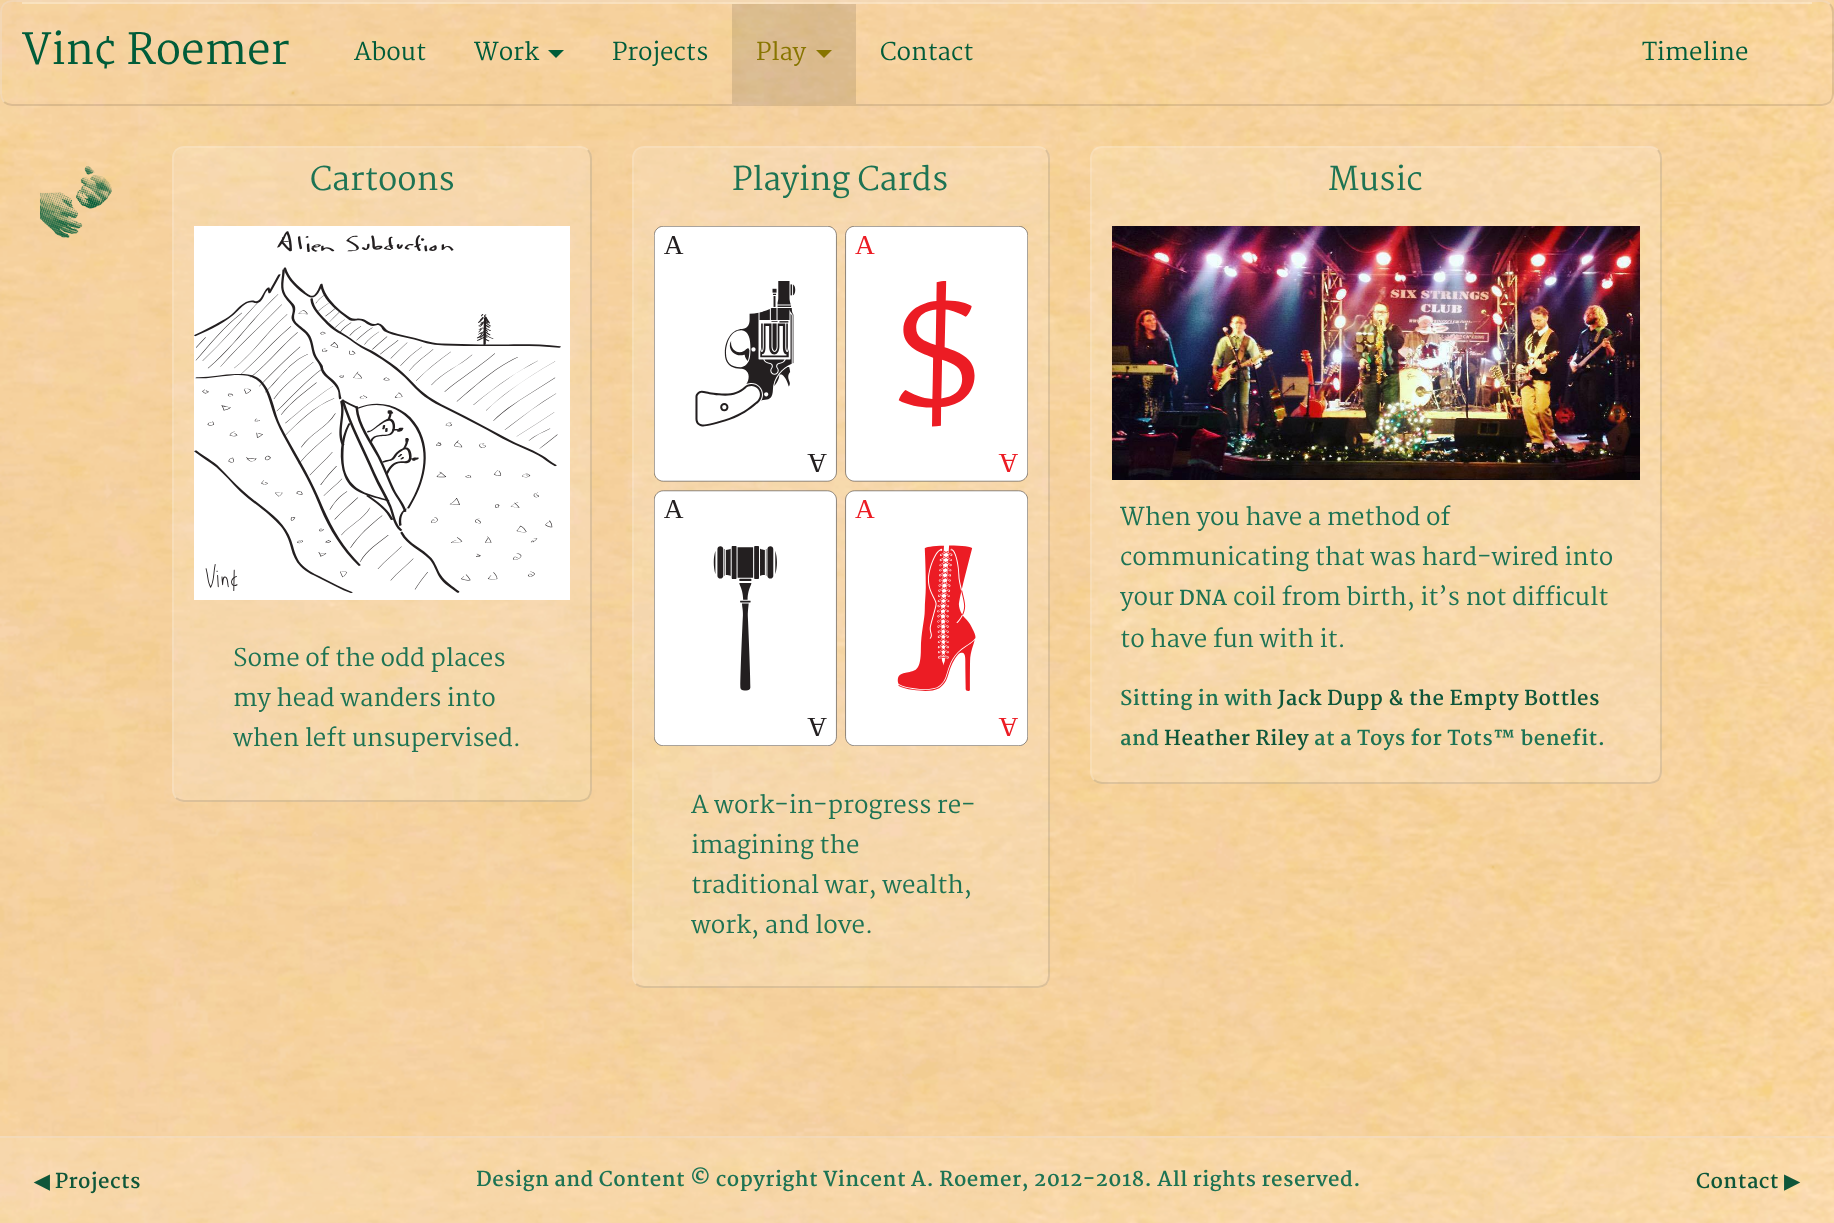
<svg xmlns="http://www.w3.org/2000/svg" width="1834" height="1223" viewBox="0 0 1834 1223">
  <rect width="100%" height="100%" fill="#fff"/>
  <image x="0" y="0" width="1834" height="1136" href="img/1.png"/>
  <path d="M1830 4C1832 6.5 1833 9 1833 12V94C1833 97 1832 99.5 1830 102C1827.5 104 1825 105 1822 105H12C9 105 6.5 104 4 102" fill="none" stroke="#4b3c2d26" stroke-width="2"/>
  <path d="M4 102C2 99.5 1 97 1 94V12C1 9 2 6.5 4 4C6.5 2 9 1 12 1H1822C1825 1 1827.5 2 1830 4" fill="none" stroke="#f0dcc880" stroke-width="2"/>
  <path d="M22 2h1790v2H22z" fill="#ffffff54"/>
  <path d="M548 50H564L556 58Z" fill="#005c39"/>
  <path d="M732 4h124v100H732z" fill="#463c2d26"/>
  <path d="M816 50H832L824 58Z" fill="#887500"/>
  <image x="40" y="166" width="72" height="72" href="img/2.png"/>
  <rect x="172" y="146" width="420" height="656" rx="12" fill="#ffffff26"/>
  <path d="M588 150C590 152.5 591 155 591 158V790C591 793 590 795.5 588 798C585.5 800 583 801 580 801H184C181 801 178.5 800 176 798" fill="none" stroke="#463c2d26" stroke-width="2"/>
  <path d="M176 798C174 795.5 173 793 173 790V158C173 155 174 152.5 176 150C178.5 148 181 147 184 147H580C583 147 585.5 148 588 150" fill="none" stroke="#ffffff26" stroke-width="2"/>
  <image x="194" y="226" width="376" height="374" href="img/3.png"/>
  <rect x="632" y="146" width="418" height="842" rx="12" fill="#ffffff26"/>
  <path d="M1046 150C1048 152.5 1049 155 1049 158V976C1049 979 1048 981.5 1046 984C1043.5 986 1041 987 1038 987H644C641 987 638.5 986 636 984" fill="none" stroke="#463c2d26" stroke-width="2"/>
  <path d="M636 984C634 981.5 633 979 633 976V158C633 155 634 152.5 636 150C638.5 148 641 147 644 147H1038C1041 147 1043.5 148 1046 150" fill="none" stroke="#ffffff26" stroke-width="2"/>
  <image x="654" y="226" width="374" height="520" href="img/4.png"/>
  <rect x="1090" y="146" width="572" height="638" rx="12" fill="#ffffff26"/>
  <path d="M1658 150C1660 152.5 1661 155 1661 158V772C1661 775 1660 777.5 1658 780C1655.5 782 1653 783 1650 783H1102C1099 783 1096.5 782 1094 780" fill="none" stroke="#463c2d26" stroke-width="2"/>
  <path d="M1094 780C1092 777.5 1091 775 1091 772V158C1091 155 1092 152.5 1094 150C1096.5 148 1099 147 1102 147H1650C1653 147 1655.5 148 1658 150" fill="none" stroke="#ffffff26" stroke-width="2"/>
  <image x="1112" y="226" width="528" height="254" href="img/5.png"/>
  <image x="0" y="1136" width="1834" height="87" href="img/6.png"/>
  <path d="M0 1136h1834v2H0z" fill="#f0dcc880"/>
  <text x="22" y="64" font-family="Martel" font-size="42" fill="#005c39">Vin¢ Roemer</text>
  <g font-family="Martel" font-size="24" fill="#005c39">
    <text x="354" y="60">About</text>
    <text x="474" y="60">Work</text>
    <text x="612" y="60">Projects</text>
  </g>
  <text x="756" y="60" font-family="Martel" font-size="24" fill="#887500">Play</text>
  <g font-family="Martel" font-size="24" fill="#005c39">
    <text x="880" y="60">Contact</text>
    <text x="1642" y="60">Timeline</text>
  </g>
  <text x="310" y="190" font-family="Martel" font-size="32" fill="#1d7353">Cartoons</text>
  <g font-family="Martel" font-size="24" fill="#1d7353">
    <text x="233" y="666">Some of the odd places</text>
    <text x="233" y="706">my head wanders into</text>
    <text x="233" y="746">when left unsupervised.</text>
  </g>
  <text x="732" y="190" font-family="Martel" font-size="32" fill="#1d7353">Playing Cards</text>
  <g font-family="Martel" font-size="24" fill="#1d7353">
    <text x="691" y="813">A work-in-progress re-</text>
    <text x="691" y="853">imagining the</text>
    <text x="691" y="893">traditional war, wealth,</text>
    <text x="691" y="933">work, and love.</text>
  </g>
  <text x="1328" y="190" font-family="Martel" font-size="32" fill="#1d7353">Music</text>
  <g font-family="Martel" font-size="24" fill="#1d7353">
    <text x="1120" y="525">When you have a method of</text>
    <text x="1120" y="565">communicating that was hard-wired into</text>
    <text x="1120" y="605">your</text>
  </g>
  <text x="1179" y="605" font-family="Martel" font-size="20" font-weight="bold" letter-spacing="0.5" fill="#1d7353">DNA</text>
  <g font-family="Martel" font-size="24" fill="#1d7353">
    <text x="1233" y="605">coil from birth, it’s not difficult</text>
    <text x="1120" y="647">to have fun with it.</text>
  </g>
  <text x="1120" y="705" font-family="Martel" font-size="20" font-weight="bold" letter-spacing="0.5" fill="#1d7353">Sitting in with</text>
  <text x="1278" y="705" font-family="Martel" font-size="20" font-weight="bold" letter-spacing="0.5" fill="#0e5639">Jack Dupp &amp; the Empty Bottles</text>
  <text x="1120" y="745" font-family="Martel" font-size="20" font-weight="bold" letter-spacing="0.5" fill="#1d7353">and</text>
  <text x="1164" y="745" font-family="Martel" font-size="20" font-weight="bold" letter-spacing="0.5" fill="#0e5639">Heather Riley</text>
  <text x="1314" y="745" font-family="Martel" font-size="20" font-weight="bold" letter-spacing="0.5" fill="#1d7353">at a Toys for Tots™ benefit.</text>
  <text x="34" y="1188" font-family="DejaVu Sans" font-size="20" font-weight="bold" letter-spacing="0.5" fill="#0e5639">◀</text>
  <text x="55" y="1188" font-family="Martel" font-size="20" font-weight="bold" letter-spacing="0.5" fill="#0e5639">Projects</text>
  <text x="476" y="1186" font-family="Martel" font-size="20" font-weight="bold" letter-spacing="0.5" fill="#1d7353">Design and Content © copyright Vincent A. Roemer, 2012-2018. All rights reserved.</text>
  <text x="1696" y="1188" font-family="Martel" font-size="20" font-weight="bold" letter-spacing="0.5" fill="#0e5639">Contact</text>
  <text x="1784" y="1188" font-family="DejaVu Sans" font-size="20" font-weight="bold" letter-spacing="0.5" fill="#0e5639">▶</text>
</svg>
